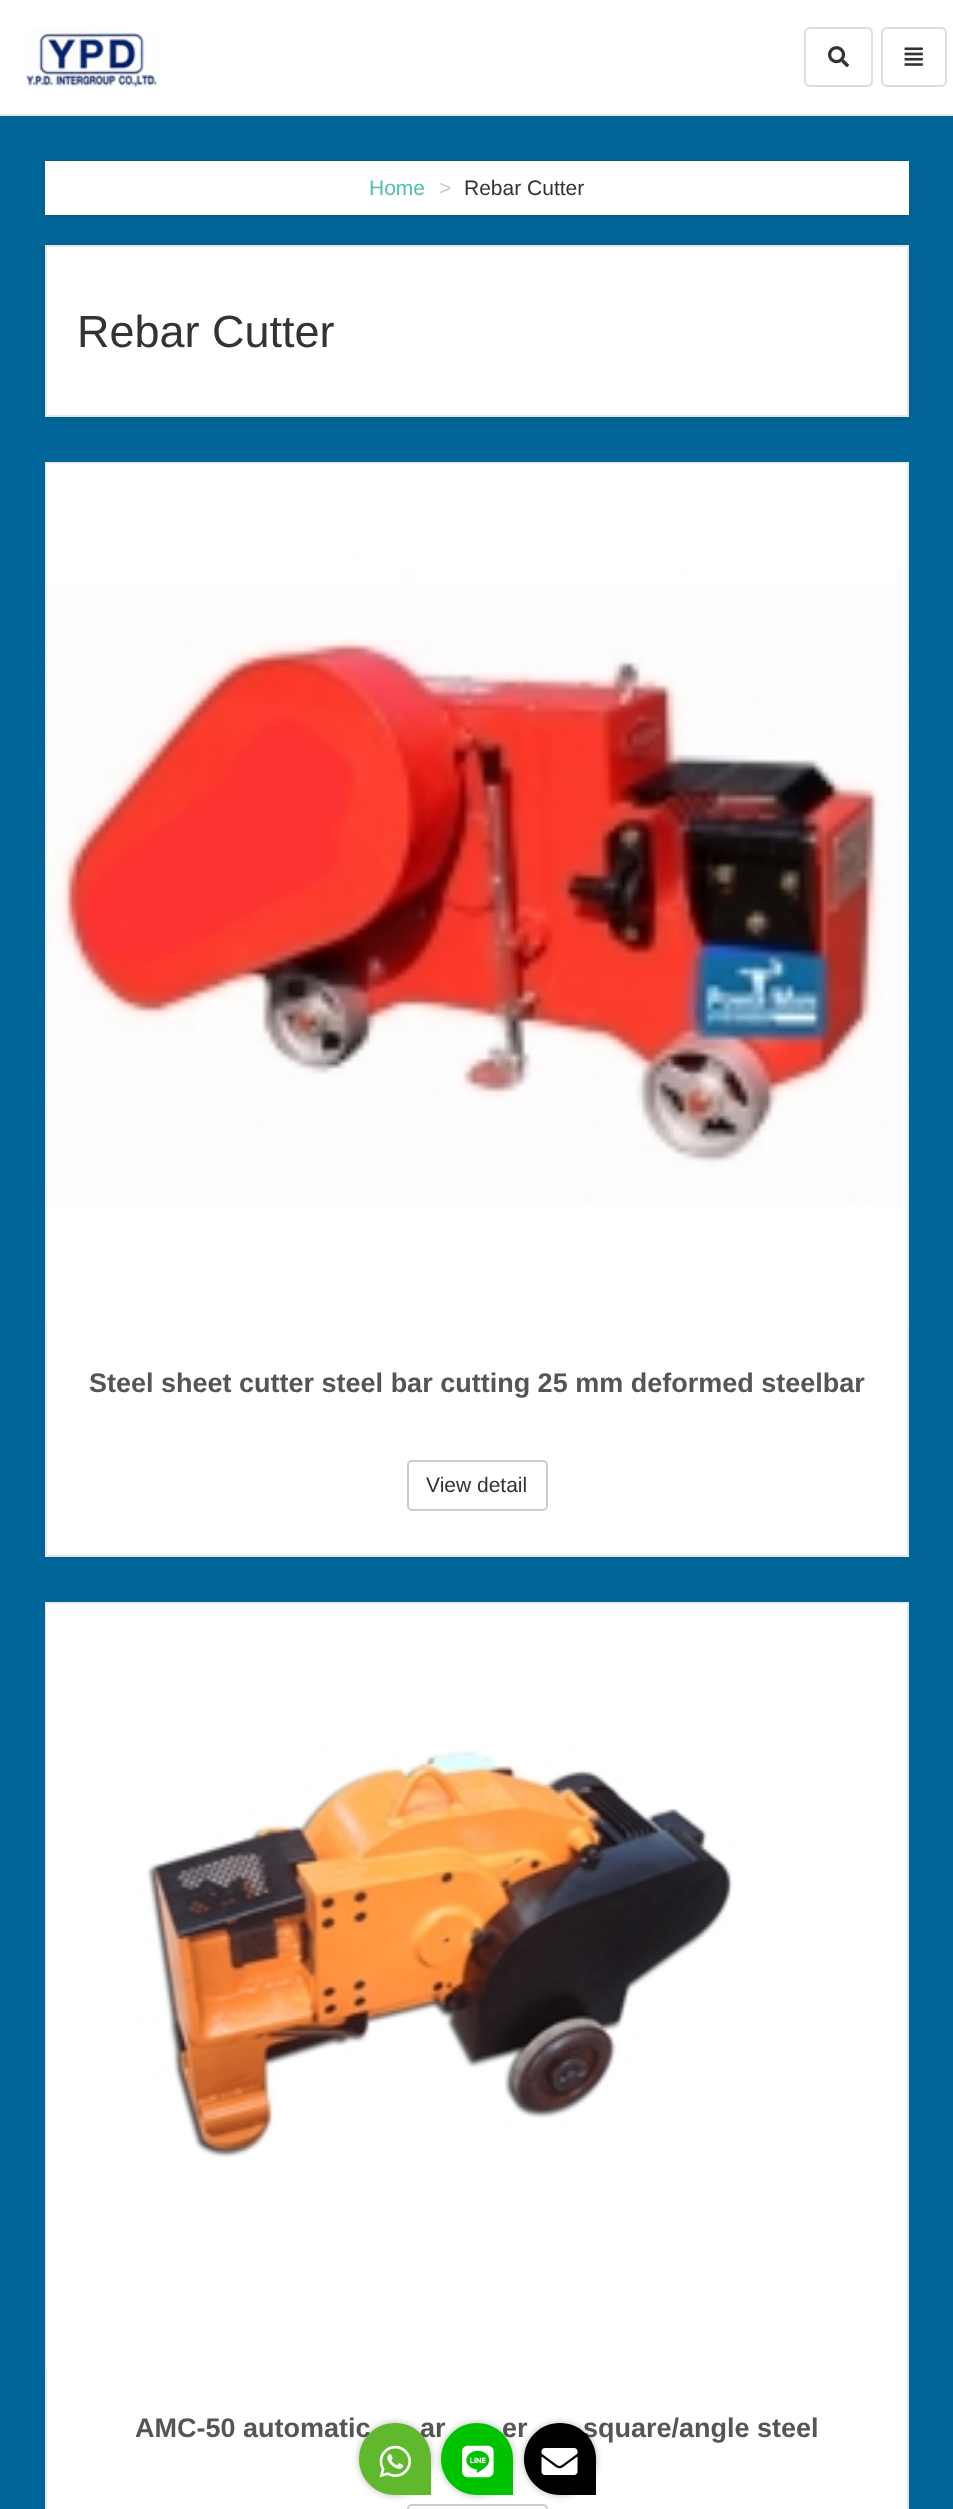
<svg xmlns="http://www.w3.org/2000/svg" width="953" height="2509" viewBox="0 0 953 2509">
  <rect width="100%" height="100%" fill="#069"/>
  <path d="M0 0h953v114H0z" fill="#fff"/>
  <path d="M0 114h953v2H0z" fill="#e6e6e6"/>
  <image x="25" y="29" width="135" height="59" href="img/1.png"/>
  <rect x="805" y="28" width="67" height="58" rx="5" fill="none" stroke="#ddd" stroke-width="2"/>
  <image x="828" y="46" width="21" height="22" href="img/2.png"/>
  <rect x="882" y="28" width="64" height="58" rx="5" fill="none" stroke="#ddd" stroke-width="2"/>
  <image x="904" y="47" width="19" height="19" href="img/3.png"/>
  <path d="M45 162h864v54H45z" fill="#0000001a" filter="blur(4px)"/>
  <path d="M45 161h864v54H45z" fill="#fff"/>
  <path d="M45 246h864v173H45z" fill="#0000001a" filter="blur(4px)"/>
  <path d="M46 246h862v170H46z" fill="#fff" stroke="#e6e6e6" stroke-width="2"/>
  <path d="M46 463h862v1093H46z" fill="#fff" stroke="#e6e6e6" stroke-width="2"/>
  <image x="46" y="463" width="862" height="862" href="img/4.png"/>
  <rect x="408" y="1461" width="139" height="49" rx="4" fill="none" stroke="#ccc" stroke-width="2"/>
  <path d="M47 2368h860v141H47z" fill="#fff"/>
  <path d="M46 1603h862v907H46z" fill="none" stroke="#e6e6e6" stroke-width="2"/>
  <image x="46" y="1603" width="861" height="766" href="img/5.png"/>
  <rect x="408" y="2505" width="139" height="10" rx="4" fill="none" stroke="#ccc" stroke-width="2"/>
  <rect x="359" y="2423" width="72" height="72" rx="36" fill="#0000004d" filter="blur(3.5px)"/>
  <text x="369" y="195" font-family="Liberation Sans" font-size="21" fill="#4fbfa8">Home</text>
  <text x="439" y="195" font-family="Liberation Sans" font-size="21" fill="#ccc">&gt;</text>
  <text x="464" y="195" font-family="Liberation Sans" font-size="21" fill="#333">Rebar Cutter</text>
  <text x="77" y="347" font-family="Liberation Sans" font-size="45" fill="#333">Rebar Cutter</text>
  <text x="89" y="1392" font-family="Liberation Sans" font-size="27" font-weight="bold" fill="#555">Steel sheet cutter steel bar cutting 25 mm deformed steelbar</text>
  <text x="426" y="1492" font-family="Liberation Sans" font-size="21" fill="#333">View detail</text>
  <g font-family="Liberation Sans" font-size="27" font-weight="bold" fill="#555">
    <text x="135" y="2437">AMC-50 automatic</text>
    <text x="420" y="2437">ar</text>
    <text x="502" y="2437">er</text>
    <text x="583" y="2437">square/angle steel</text>
  </g>
  <path d="M395 2423C415 2423 431 2439 431 2459V2495H395C375 2495 359 2479 359 2459C359 2439 375 2423 395 2423Z" fill="#60b82d"/>
  <image x="379" y="2445" width="32" height="33" href="img/6.png"/>
  <rect x="441" y="2423" width="72" height="72" rx="36" fill="#0000004d" filter="blur(3.5px)"/>
  <path d="M477 2423C497 2423 513 2439 513 2459V2495H477C457 2495 441 2479 441 2459C441 2439 457 2423 477 2423Z" fill="#00c300"/>
  <image x="462" y="2445" width="32" height="33" href="img/7.png"/>
  <rect x="524" y="2423" width="72" height="72" rx="36" fill="#0000004d" filter="blur(3.5px)"/>
  <path d="M560 2423C580 2423 596 2439 596 2459V2495H560C540 2495 524 2479 524 2459C524 2439 540 2423 560 2423Z" fill="#000"/>
  <image x="541" y="2448" width="37" height="27" href="img/8.png"/>
</svg>
